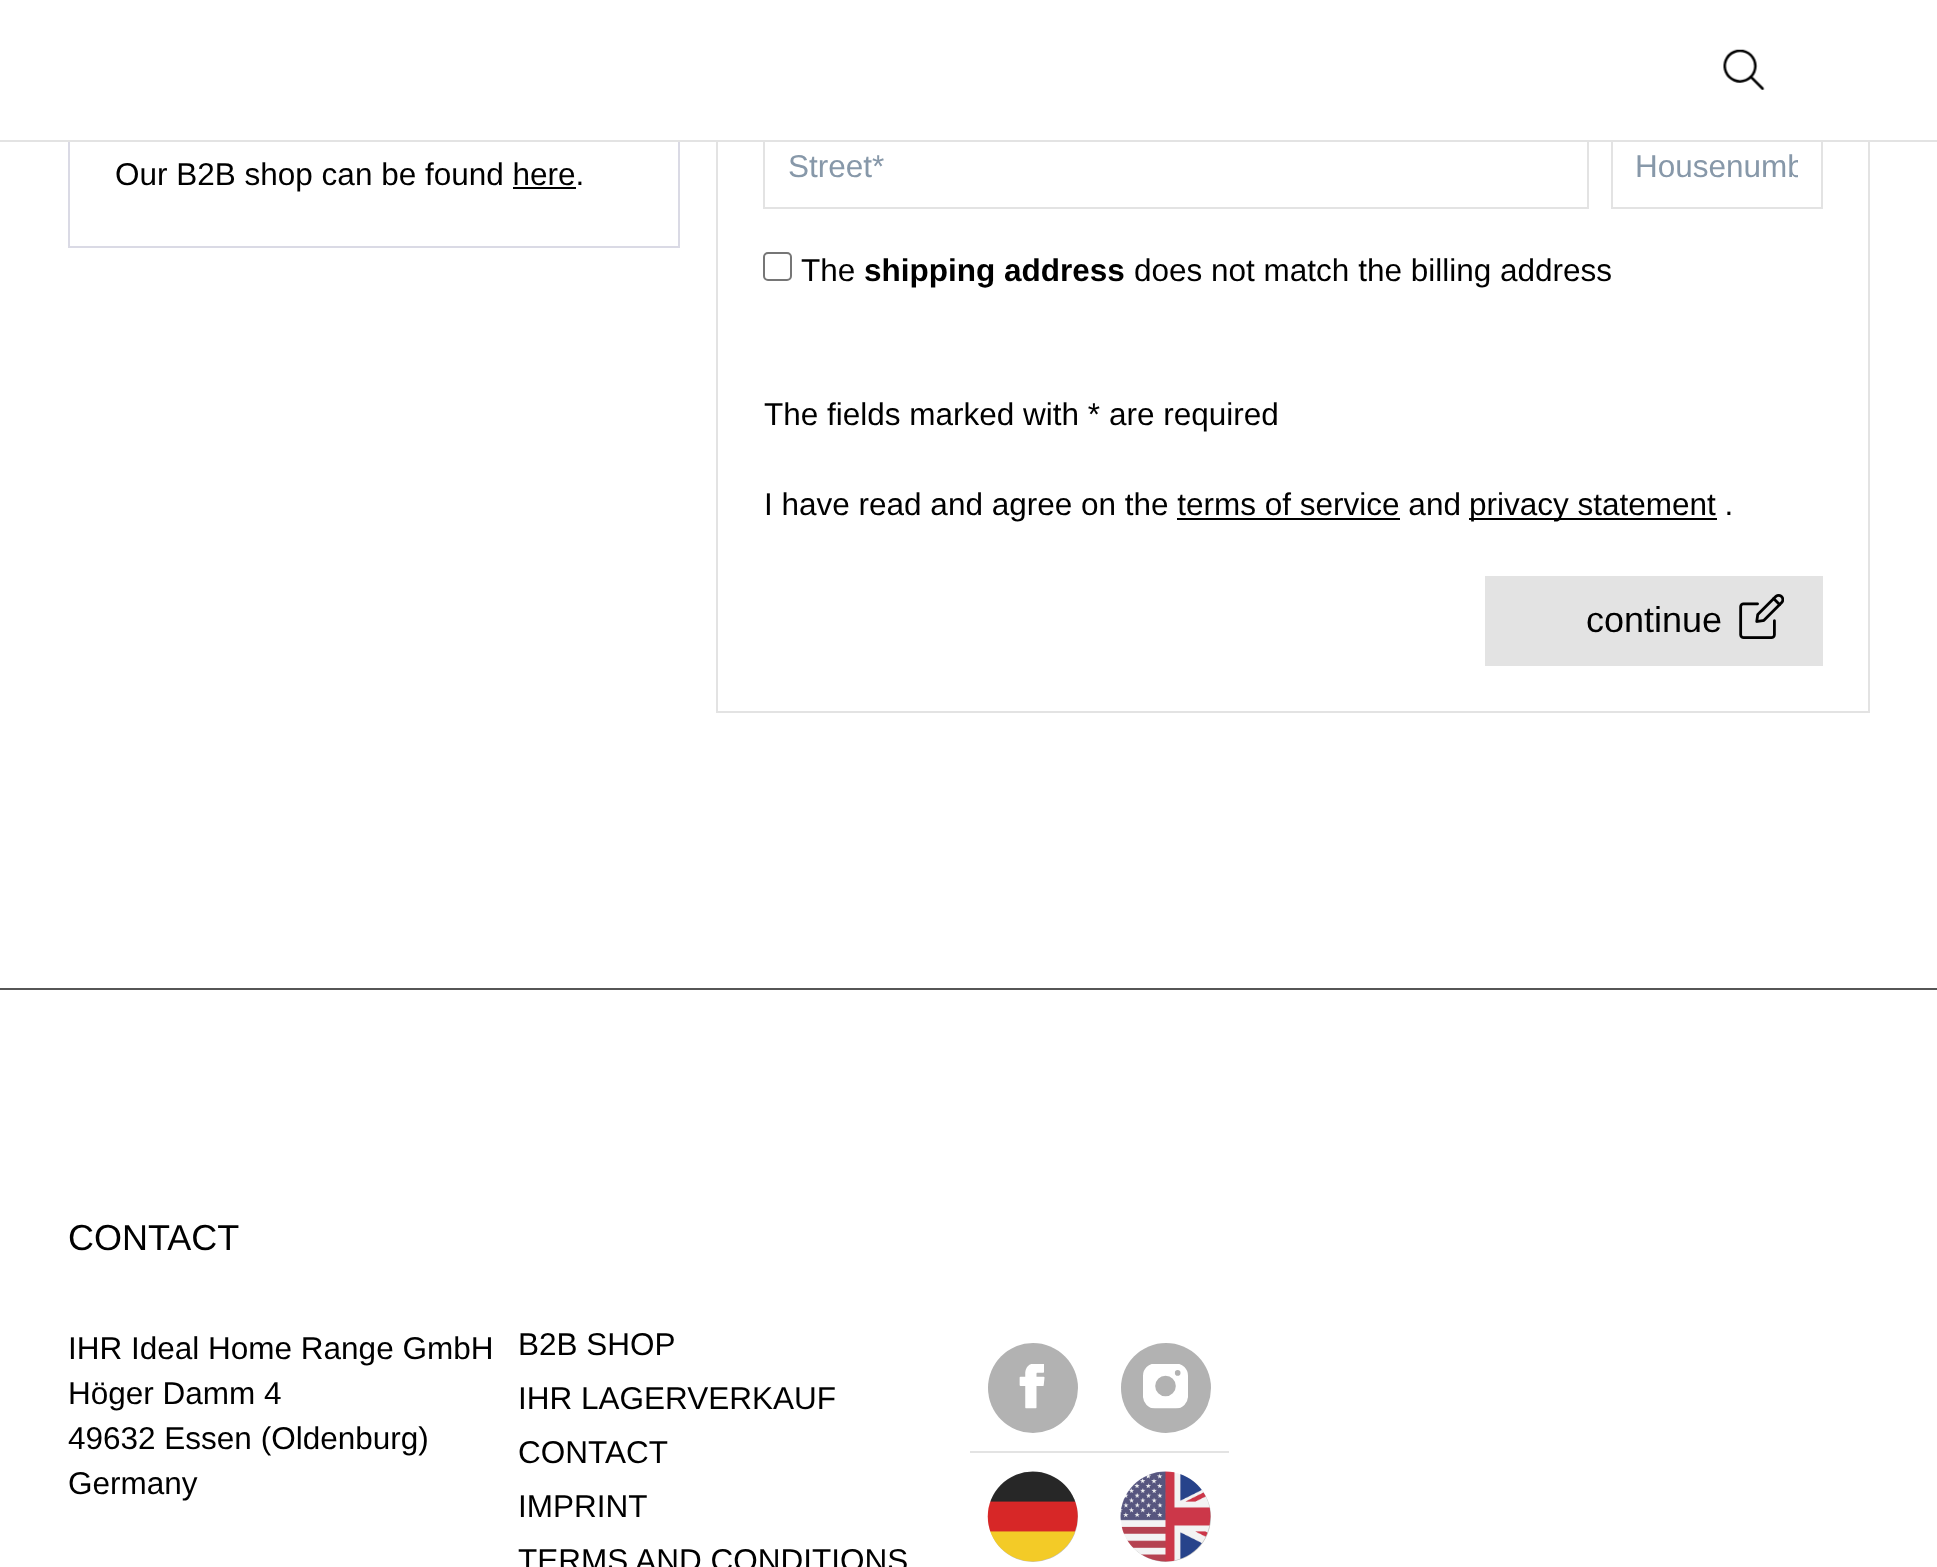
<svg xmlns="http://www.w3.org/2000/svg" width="1937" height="1567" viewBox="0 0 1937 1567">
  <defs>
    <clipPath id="clip1"><path d="M1636 149h162v36H1636z"/></clipPath>
  </defs>
  <rect width="100%" height="100%" fill="#fff"/>
  <path d="M69 10h610v237H69z" fill="none" stroke="#dadae5" stroke-width="2"/>
  <path d="M717 -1h1152v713H717z" fill="none" stroke="#e3e3e3" stroke-width="2"/>
  <path d="M764 120h824v88H764z" fill="none" stroke="#e3e3e3" stroke-width="2"/>
  <path d="M1612 120h210v88H1612z" fill="none" stroke="#e3e3e3" stroke-width="2"/>
  <path d="M68 0h1802v140H68z" fill="#fff"/>
  <path d="M0 140h1937v2H0z" fill="#e3e3e3"/>
  <image x="1723" y="49" width="42" height="41" href="img/1.png"/>
  <path d="M513 187h63v2H513z" fill="#000"/>
  <rect x="764" y="253" width="27" height="27" rx="4" fill="none" stroke="#767676" stroke-width="2"/>
  <path d="M1469 518h248v2H1469z" fill="#000"/>
  <path d="M1177 518h223v2H1177z" fill="#000"/>
  <path d="M1485 576h338v90H1485z" fill="#e3e3e3"/>
  <image x="1739" y="594" width="45" height="45" href="img/2.png"/>
  <path d="M0 988h1937v2H0z" fill="#565656"/>
  <circle cx="1033" cy="1388" r="45" fill="#b2b2b2"/>
  <image x="1019" y="1364" width="26" height="45" href="img/3.png"/>
  <circle cx="1166" cy="1388" r="45" fill="#b2b2b2"/>
  <image x="1143" y="1364" width="45" height="45" href="img/4.png"/>
  <path d="M970 1451h259v2H970z" fill="#e3e3e3"/>
  <circle cx="1033" cy="1517" r="45" fill="#c1c1c1"/>
  <image x="987" y="1471" width="91" height="91" href="img/5.png"/>
  <circle cx="1166" cy="1517" r="45" fill="#c1c1c1"/>
  <image x="1120" y="1471" width="91" height="91" href="img/6.png"/>
  <text x="115" y="185" font-family="Liberation Sans" font-size="31.5" fill="#000">Our B2B shop can be found here.</text>
  <text x="788" y="177" font-family="Liberation Sans" font-size="31.5" fill="#8798a9">Street*</text>
  <g clip-path="url(#clip1)">
    <text x="1635" y="177" font-family="Liberation Sans" font-size="31.5" fill="#8798a9">Housenumb</text>
  </g>
  <text x="801" y="281" font-family="Liberation Sans" font-size="31.5" fill="#000">The</text>
  <text x="864" y="281" font-family="Liberation Sans" font-size="31.5" font-weight="bold" fill="#000">shipping address</text>
  <g font-family="Liberation Sans" font-size="31.5" fill="#000">
    <text x="1134" y="281">does not match the billing address</text>
    <text x="764" y="425">The fields marked with * are required</text>
    <text x="764" y="515">I have read and agree on the terms of service and</text>
    <text x="1469" y="515">privacy statement .</text>
  </g>
  <g font-family="Liberation Sans" font-size="36" fill="#000">
    <text x="1586" y="632">continue</text>
    <text x="68" y="1250">CONTACT</text>
  </g>
  <g font-family="Liberation Sans" font-size="31.5" fill="#000">
    <text x="68" y="1359">IHR Ideal Home Range GmbH</text>
    <text x="68" y="1404">Höger Damm 4</text>
    <text x="68" y="1449">49632 Essen (Oldenburg)</text>
    <text x="68" y="1494">Germany</text>
    <text x="518" y="1355">B2B SHOP</text>
    <text x="518" y="1409">IHR LAGERVERKAUF</text>
    <text x="518" y="1463">CONTACT</text>
    <text x="518" y="1517">IMPRINT</text>
    <text x="518" y="1571">TERMS AND CONDITIONS</text>
  </g>
</svg>
